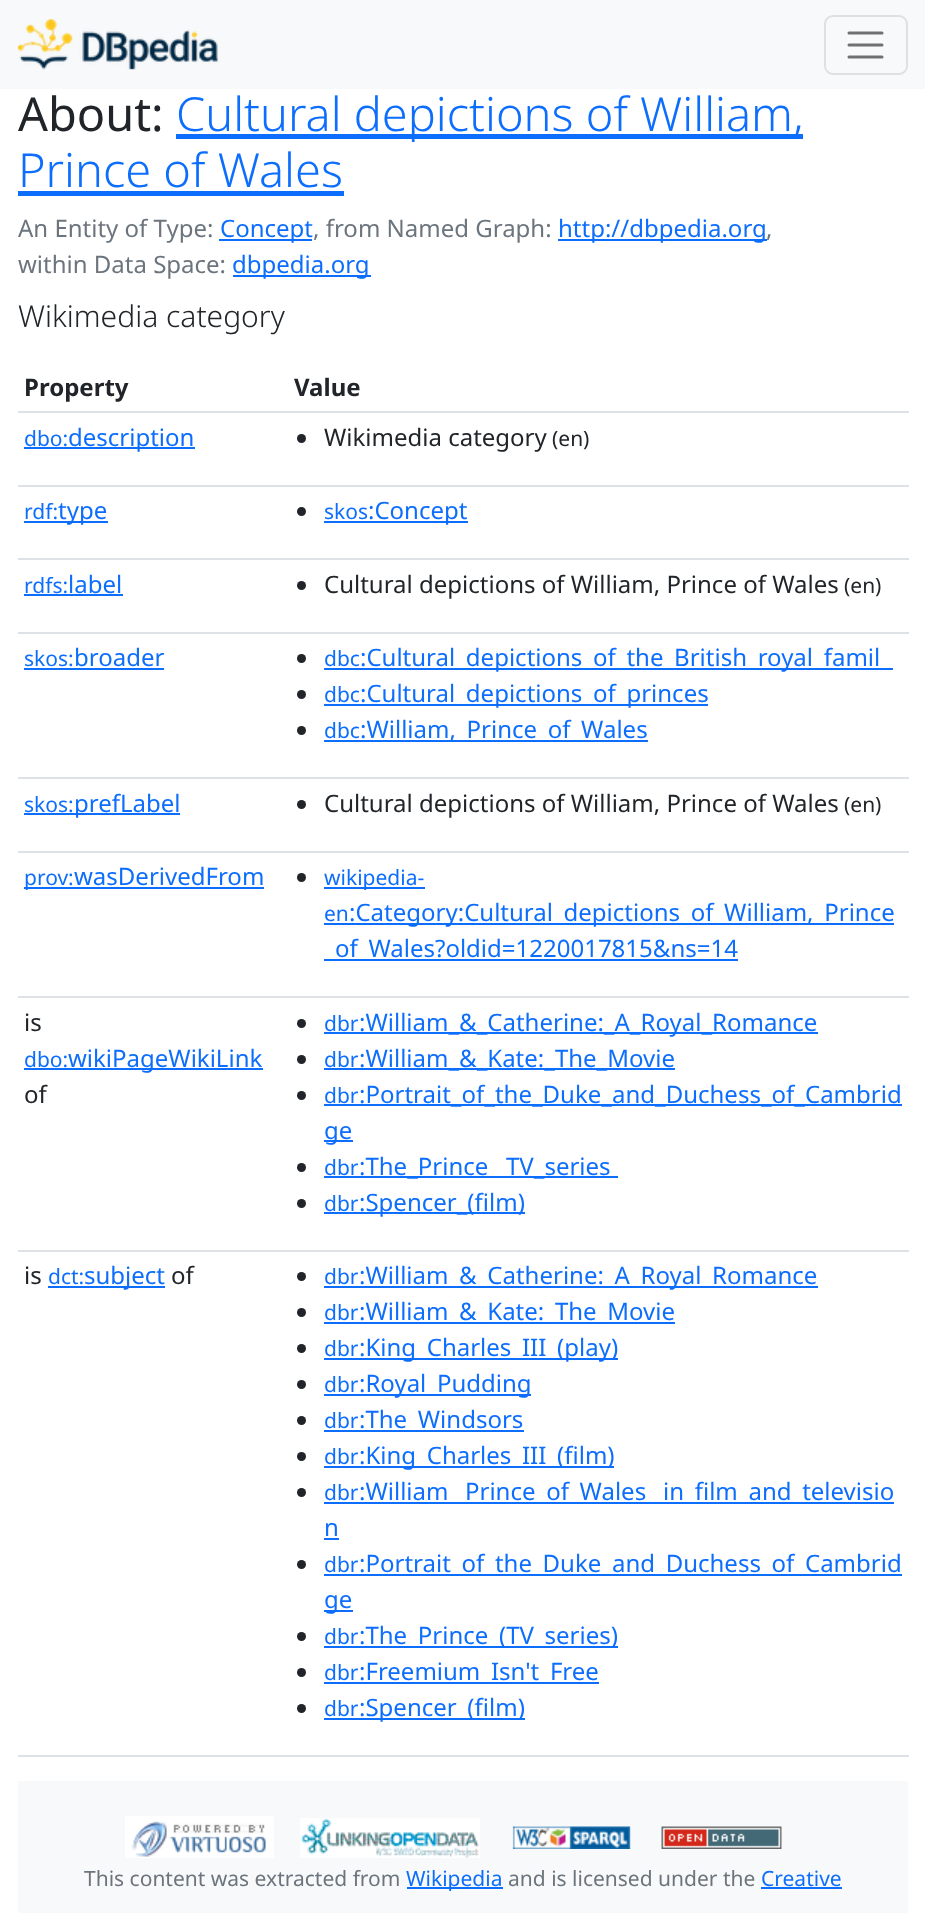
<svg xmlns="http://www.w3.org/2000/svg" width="925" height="1913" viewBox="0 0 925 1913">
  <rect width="100%" height="100%" fill="#fff"/>
  <path d="M0 0h925v89H0z" fill="#f8f9fa"/>
  <image x="18" y="19" width="200" height="51" href="img/1.png"/>
  <rect x="825" y="16" width="82" height="58" rx="8" fill="none" stroke="#dfe0e1" stroke-width="2"/>
  <path d="M849 33H882M849 45H882M849 57H882" fill="none" stroke="#707071" stroke-width="3" stroke-linecap="round"/>
  <path d="M176 134h627v5H176z" fill="#0d6efd"/>
  <path d="M18 191h326v5H18z" fill="#0d6efd"/>
  <path d="M219 239h93v2H219z" fill="#0d6efd"/>
  <path d="M558 239h209v2H558z" fill="#0d6efd"/>
  <path d="M233 275h138v2H233z" fill="#0d6efd"/>
  <path d="M18 411h891v2H18z" fill="#dee2e6"/>
  <path d="M24 447h171v2H24z" fill="#0d6efd"/>
  <path d="M18 485h891v2H18z" fill="#dee2e6"/>
  <circle cx="301.5" cy="438.5" r="4.5" fill="#212529"/>
  <path d="M24 521h84v2H24z" fill="#0d6efd"/>
  <path d="M18 558h891v2H18z" fill="#dee2e6"/>
  <circle cx="301.5" cy="511.5" r="4.5" fill="#212529"/>
  <path d="M324 521h144v2H324z" fill="#0d6efd"/>
  <path d="M24 594h99v2H24z" fill="#0d6efd"/>
  <path d="M18 632h891v2H18z" fill="#dee2e6"/>
  <circle cx="301.5" cy="585.5" r="4.5" fill="#212529"/>
  <path d="M24 668h140v2H24z" fill="#0d6efd"/>
  <path d="M18 777h891v2H18z" fill="#dee2e6"/>
  <circle cx="301.5" cy="658.5" r="4.5" fill="#212529"/>
  <path d="M324 668h569v2H324z" fill="#0d6efd"/>
  <circle cx="301.5" cy="694.5" r="4.5" fill="#212529"/>
  <path d="M324 704h384v2H324z" fill="#0d6efd"/>
  <circle cx="301.5" cy="730.5" r="4.5" fill="#212529"/>
  <path d="M324 740h324v2H324z" fill="#0d6efd"/>
  <path d="M24 813h156v2H24z" fill="#0d6efd"/>
  <path d="M18 851h891v2H18z" fill="#dee2e6"/>
  <circle cx="301.5" cy="804.5" r="4.5" fill="#212529"/>
  <path d="M24 887h240v2H24z" fill="#0d6efd"/>
  <path d="M18 996h891v2H18z" fill="#dee2e6"/>
  <circle cx="301.5" cy="877.5" r="4.5" fill="#212529"/>
  <path d="M324 887h101v2H324z" fill="#0d6efd"/>
  <path d="M324 923h570v2H324z" fill="#0d6efd"/>
  <path d="M324 959h414v2H324z" fill="#0d6efd"/>
  <path d="M24 1068h239v2H24z" fill="#0d6efd"/>
  <path d="M18 1250h891v2H18z" fill="#dee2e6"/>
  <circle cx="301.5" cy="1023.5" r="4.5" fill="#212529"/>
  <path d="M324 1032h494v2H324z" fill="#0d6efd"/>
  <circle cx="301.5" cy="1059.5" r="4.5" fill="#212529"/>
  <path d="M324 1068h351v2H324z" fill="#0d6efd"/>
  <circle cx="301.5" cy="1095.5" r="4.5" fill="#212529"/>
  <path d="M324 1104h578v2H324z" fill="#0d6efd"/>
  <path d="M324 1140h29v2H324z" fill="#0d6efd"/>
  <circle cx="301.5" cy="1167.5" r="4.5" fill="#212529"/>
  <path d="M324 1176h294v2H324z" fill="#0d6efd"/>
  <circle cx="301.5" cy="1203.5" r="4.5" fill="#212529"/>
  <path d="M324 1212h201v2H324z" fill="#0d6efd"/>
  <path d="M48 1286h117v2H48z" fill="#0d6efd"/>
  <path d="M18 1755h891v2H18z" fill="#dee2e6"/>
  <circle cx="301.5" cy="1276.5" r="4.5" fill="#212529"/>
  <path d="M324 1286h494v2H324z" fill="#0d6efd"/>
  <circle cx="301.5" cy="1312.5" r="4.5" fill="#212529"/>
  <path d="M324 1322h351v2H324z" fill="#0d6efd"/>
  <circle cx="301.5" cy="1348.5" r="4.5" fill="#212529"/>
  <path d="M324 1358h294v2H324z" fill="#0d6efd"/>
  <circle cx="301.5" cy="1384.5" r="4.5" fill="#212529"/>
  <path d="M324 1394h207v2H324z" fill="#0d6efd"/>
  <circle cx="301.5" cy="1420.5" r="4.5" fill="#212529"/>
  <path d="M324 1430h200v2H324z" fill="#0d6efd"/>
  <circle cx="301.5" cy="1456.5" r="4.5" fill="#212529"/>
  <path d="M324 1466h290v2H324z" fill="#0d6efd"/>
  <circle cx="301.5" cy="1492.5" r="4.5" fill="#212529"/>
  <path d="M324 1502h570v2H324z" fill="#0d6efd"/>
  <path d="M324 1538h15v2H324z" fill="#0d6efd"/>
  <circle cx="301.5" cy="1564.5" r="4.5" fill="#212529"/>
  <path d="M324 1574h578v2H324z" fill="#0d6efd"/>
  <path d="M324 1610h29v2H324z" fill="#0d6efd"/>
  <circle cx="301.5" cy="1636.5" r="4.5" fill="#212529"/>
  <path d="M324 1646h294v2H324z" fill="#0d6efd"/>
  <circle cx="301.5" cy="1672.5" r="4.5" fill="#212529"/>
  <path d="M324 1682h275v2H324z" fill="#0d6efd"/>
  <circle cx="301.5" cy="1708.5" r="4.5" fill="#212529"/>
  <path d="M324 1718h201v2H324z" fill="#0d6efd"/>
  <path d="M18 1781h890v132H18z" fill="#f8f9fa"/>
  <image x="125" y="1816" width="149" height="42" href="img/2.png"/>
  <image x="300" y="1818" width="180" height="40" href="img/3.png"/>
  <image x="512" y="1826" width="119" height="23" href="img/4.png"/>
  <image x="661" y="1826" width="121" height="23" href="img/5.png"/>
  <path d="M407 1887h96v2H407z" fill="#0d6efd"/>
  <path d="M761 1887h81v2H761z" fill="#0d6efd"/>
  <text x="18" y="131" font-family="Noto Sans" font-size="46.9" fill="#212529">About:</text>
  <g font-family="Noto Sans" font-size="46.9" font-weight="300" fill="#0d6efd">
    <text x="176" y="131">Cultural depictions of William,</text>
    <text x="18" y="187">Prince of Wales</text>
  </g>
  <text x="18" y="237" font-family="Noto Sans" font-size="24" fill="#6c757d">An Entity of Type:</text>
  <text x="220" y="237" font-family="Noto Sans" font-size="24" fill="#0d6efd">Concept</text>
  <text x="313" y="237" font-family="Noto Sans" font-size="24" fill="#6c757d">, from Named Graph:</text>
  <text x="558" y="237" font-family="Noto Sans" font-size="24" fill="#0d6efd">http://dbpedia.org</text>
  <g font-family="Noto Sans" font-size="24" fill="#6c757d">
    <text x="766" y="237">,</text>
    <text x="18" y="273">within Data Space:</text>
  </g>
  <text x="232" y="273" font-family="Noto Sans" font-size="24" fill="#0d6efd">dbpedia.org</text>
  <text x="18" y="327" font-family="Noto Sans" font-size="30" font-weight="300" fill="#212529">Wikimedia category</text>
  <g font-family="Noto Sans" font-size="24" font-weight="bold" fill="#212529">
    <text x="24" y="396">Property</text>
    <text x="294" y="396">Value</text>
  </g>
  <text x="24" y="446" font-family="Noto Sans" font-size="21" fill="#0d6efd">dbo:</text>
  <text x="68" y="446" font-family="Noto Sans" font-size="24" fill="#0d6efd">description</text>
  <text x="324" y="446" font-family="Noto Sans" font-size="24" fill="#212529">Wikimedia category</text>
  <text x="552" y="446" font-family="Noto Sans" font-size="21" fill="#212529">(en)</text>
  <text x="24" y="519" font-family="Noto Sans" font-size="21" fill="#0d6efd">rdf:</text>
  <text x="58" y="519" font-family="Noto Sans" font-size="24" fill="#0d6efd">type</text>
  <text x="324" y="519" font-family="Noto Sans" font-size="21" fill="#0d6efd">skos</text>
  <text x="368" y="519" font-family="Noto Sans" font-size="24" fill="#0d6efd">:Concept</text>
  <text x="24" y="593" font-family="Noto Sans" font-size="21" fill="#0d6efd">rdfs:</text>
  <text x="68" y="593" font-family="Noto Sans" font-size="24" fill="#0d6efd">label</text>
  <text x="324" y="593" font-family="Noto Sans" font-size="24" fill="#212529">Cultural depictions of William, Prince of Wales</text>
  <text x="844" y="593" font-family="Noto Sans" font-size="21" fill="#212529">(en)</text>
  <text x="24" y="666" font-family="Noto Sans" font-size="21" fill="#0d6efd">skos:</text>
  <text x="74" y="666" font-family="Noto Sans" font-size="24" fill="#0d6efd">broader</text>
  <text x="324" y="666" font-family="Noto Sans" font-size="21" fill="#0d6efd">dbc</text>
  <text x="360" y="666" font-family="Noto Sans" font-size="24" fill="#0d6efd">:Cultural_depictions_of_the_British_royal_famil</text>
  <text x="324" y="702" font-family="Noto Sans" font-size="21" fill="#0d6efd">dbc</text>
  <text x="360" y="702" font-family="Noto Sans" font-size="24" fill="#0d6efd">:Cultural_depictions_of_princes</text>
  <text x="324" y="738" font-family="Noto Sans" font-size="21" fill="#0d6efd">dbc</text>
  <text x="360" y="738" font-family="Noto Sans" font-size="24" fill="#0d6efd">:William,_Prince_of_Wales</text>
  <text x="24" y="812" font-family="Noto Sans" font-size="21" fill="#0d6efd">skos:</text>
  <text x="74" y="812" font-family="Noto Sans" font-size="24" fill="#0d6efd">prefLabel</text>
  <text x="324" y="812" font-family="Noto Sans" font-size="24" fill="#212529">Cultural depictions of William, Prince of Wales</text>
  <text x="844" y="812" font-family="Noto Sans" font-size="21" fill="#212529">(en)</text>
  <text x="24" y="885" font-family="Noto Sans" font-size="21" fill="#0d6efd">prov:</text>
  <text x="74" y="885" font-family="Noto Sans" font-size="24" fill="#0d6efd">wasDerivedFrom</text>
  <g font-family="Noto Sans" font-size="21" fill="#0d6efd">
    <text x="324" y="885">wikipedia-</text>
    <text x="324" y="921">en</text>
  </g>
  <g font-family="Noto Sans" font-size="24" fill="#0d6efd">
    <text x="349" y="921">:Category:Cultural_depictions_of_William,_Prince</text>
    <text x="335" y="957">of_Wales?oldid=1220017815&amp;ns=14</text>
  </g>
  <text x="24" y="1031" font-family="Noto Sans" font-size="24" fill="#212529">is</text>
  <text x="24" y="1067" font-family="Noto Sans" font-size="21" fill="#0d6efd">dbo:</text>
  <text x="68" y="1067" font-family="Noto Sans" font-size="24" fill="#0d6efd">wikiPageWikiLink</text>
  <text x="24" y="1103" font-family="Noto Sans" font-size="24" fill="#212529">of</text>
  <text x="324" y="1031" font-family="Noto Sans" font-size="21" fill="#0d6efd">dbr</text>
  <text x="359" y="1031" font-family="Noto Sans" font-size="24" fill="#0d6efd">:William_&amp;_Catherine:_A_Royal_Romance</text>
  <text x="324" y="1067" font-family="Noto Sans" font-size="21" fill="#0d6efd">dbr</text>
  <text x="359" y="1067" font-family="Noto Sans" font-size="24" fill="#0d6efd">:William_&amp;_Kate:_The_Movie</text>
  <text x="324" y="1103" font-family="Noto Sans" font-size="21" fill="#0d6efd">dbr</text>
  <g font-family="Noto Sans" font-size="24" fill="#0d6efd">
    <text x="359" y="1103">:Portrait_of_the_Duke_and_Duchess_of_Cambrid</text>
    <text x="324" y="1139">ge</text>
  </g>
  <text x="324" y="1175" font-family="Noto Sans" font-size="21" fill="#0d6efd">dbr</text>
  <g font-family="Noto Sans" font-size="24" fill="#0d6efd">
    <text x="359" y="1175">:The_Prince</text>
    <text x="506" y="1175">TV_series</text>
  </g>
  <text x="324" y="1211" font-family="Noto Sans" font-size="21" fill="#0d6efd">dbr</text>
  <text x="359" y="1211" font-family="Noto Sans" font-size="24" fill="#0d6efd">:Spencer_(film)</text>
  <text x="24" y="1284" font-family="Noto Sans" font-size="24" fill="#212529">is</text>
  <text x="48" y="1284" font-family="Noto Sans" font-size="21" fill="#0d6efd">dct:</text>
  <text x="84" y="1284" font-family="Noto Sans" font-size="24" fill="#0d6efd">subject</text>
  <text x="171" y="1284" font-family="Noto Sans" font-size="24" fill="#212529">of</text>
  <text x="324" y="1284" font-family="Noto Sans" font-size="21" fill="#0d6efd">dbr</text>
  <text x="359" y="1284" font-family="Noto Sans" font-size="24" fill="#0d6efd">:William_&amp;_Catherine:_A_Royal_Romance</text>
  <text x="324" y="1320" font-family="Noto Sans" font-size="21" fill="#0d6efd">dbr</text>
  <text x="359" y="1320" font-family="Noto Sans" font-size="24" fill="#0d6efd">:William_&amp;_Kate:_The_Movie</text>
  <text x="324" y="1356" font-family="Noto Sans" font-size="21" fill="#0d6efd">dbr</text>
  <text x="359" y="1356" font-family="Noto Sans" font-size="24" fill="#0d6efd">:King_Charles_III_(play)</text>
  <text x="324" y="1392" font-family="Noto Sans" font-size="21" fill="#0d6efd">dbr</text>
  <text x="359" y="1392" font-family="Noto Sans" font-size="24" fill="#0d6efd">:Royal_Pudding</text>
  <text x="324" y="1428" font-family="Noto Sans" font-size="21" fill="#0d6efd">dbr</text>
  <text x="359" y="1428" font-family="Noto Sans" font-size="24" fill="#0d6efd">:The_Windsors</text>
  <text x="324" y="1464" font-family="Noto Sans" font-size="21" fill="#0d6efd">dbr</text>
  <text x="359" y="1464" font-family="Noto Sans" font-size="24" fill="#0d6efd">:King_Charles_III_(film)</text>
  <text x="324" y="1500" font-family="Noto Sans" font-size="21" fill="#0d6efd">dbr</text>
  <g font-family="Noto Sans" font-size="24" fill="#0d6efd">
    <text x="359" y="1500">:William</text>
    <text x="465" y="1500">Prince_of_Wales</text>
    <text x="663" y="1500">in_film_and_televisio</text>
    <text x="324" y="1536">n</text>
  </g>
  <text x="324" y="1572" font-family="Noto Sans" font-size="21" fill="#0d6efd">dbr</text>
  <g font-family="Noto Sans" font-size="24" fill="#0d6efd">
    <text x="359" y="1572">:Portrait_of_the_Duke_and_Duchess_of_Cambrid</text>
    <text x="324" y="1608">ge</text>
  </g>
  <text x="324" y="1644" font-family="Noto Sans" font-size="21" fill="#0d6efd">dbr</text>
  <text x="359" y="1644" font-family="Noto Sans" font-size="24" fill="#0d6efd">:The_Prince_(TV_series)</text>
  <text x="324" y="1680" font-family="Noto Sans" font-size="21" fill="#0d6efd">dbr</text>
  <text x="359" y="1680" font-family="Noto Sans" font-size="24" fill="#0d6efd">:Freemium_Isn't_Free</text>
  <text x="324" y="1716" font-family="Noto Sans" font-size="21" fill="#0d6efd">dbr</text>
  <text x="359" y="1716" font-family="Noto Sans" font-size="24" fill="#0d6efd">:Spencer_(film)</text>
  <text x="84" y="1886" font-family="Noto Sans" font-size="21" fill="#6c757d">This content was extracted from</text>
  <text x="406" y="1886" font-family="Noto Sans" font-size="21" fill="#0d6efd">Wikipedia</text>
  <text x="508" y="1886" font-family="Noto Sans" font-size="21" fill="#6c757d">and is licensed under the</text>
  <text x="761" y="1886" font-family="Noto Sans" font-size="21" fill="#0d6efd">Creative</text>
</svg>
